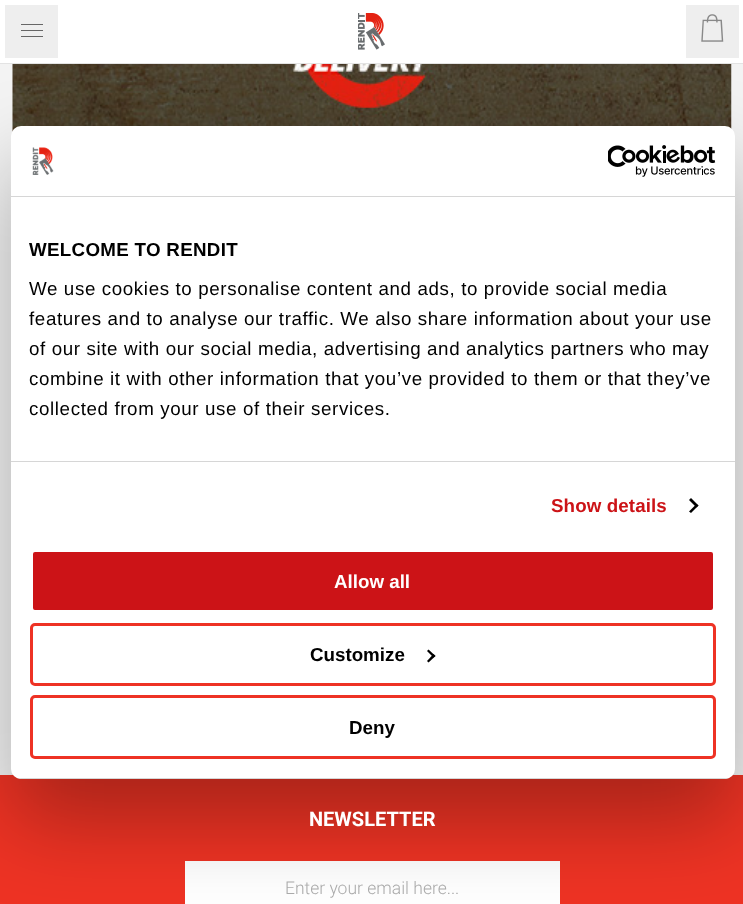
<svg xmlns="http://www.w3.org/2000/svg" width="743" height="904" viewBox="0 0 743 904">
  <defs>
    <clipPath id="clip1"><rect x="11" y="126" width="724" height="653" rx="10"/></clipPath>
  </defs>
  <rect width="100%" height="100%" fill="#f3f3f3"/>
  <path d="M0 62V64H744V1V62Z" fill="#e3e3e3"/>
  <path d="M63 0h618v63H63z" fill="#fff"/>
  <image x="358" y="13" width="27" height="37" href="img/3.png"/>
  <path d="M2.5 2.5h58v58H2.5z" fill="#eee" stroke="#fff" stroke-width="5"/>
  <path d="M683.5 2.5h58v58H683.5z" fill="#eee" stroke="#fff" stroke-width="5"/>
  <image x="701" y="14" width="23" height="28" href="img/4.png"/>
  <image x="12" y="64" width="720" height="68" href="img/5.png"/>
  <path d="M0 775h743v129H0z" fill="#ee3324"/>
  <path d="M185 861h375v43H185z" fill="#fff"/>
  <rect x="11" y="166" width="724" height="653" rx="10" fill="#0000004d" filter="blur(42.5px)"/>
  <rect x="11" y="126" width="724" height="653" rx="10" fill="#fff"/>
  <path d="M11 196h724v1H11z" fill="#d6d6d6"/>
  <image x="32" y="147" width="22" height="28" href="img/1.png"/>
  <image x="608" y="145" width="108" height="32" href="img/2.png"/>
  <path d="M11 461h724v1H11z" fill="#d6d6d6"/>
  <path d="M691 498L698.5 505.5L696.5 507.5L689 500Z" fill="#000"/>
  <path d="M696.5 504L698.5 505.5L691 513L689 511.5Z" fill="#000"/>
  <g clip-path="url(#clip1)">
    <path d="M11 778h724v1H11z" fill="#d6d6d6"/>
  </g>
  <rect x="31.5" y="550.5" width="683" height="61" rx="3.5" fill="#cc1317" stroke="#fff" stroke-width="3"/>
  <rect x="31.5" y="624.5" width="683" height="60" rx="3.5" fill="none" stroke="#ee3224" stroke-width="3"/>
  <path d="M428.5 649.5L435.5 656L433.5 657.5L427 651Z" fill="#000"/>
  <path d="M433.5 654L435.5 656L428.5 662.5L427 661Z" fill="#000"/>
  <rect x="31.5" y="696.5" width="683" height="61" rx="3.5" fill="none" stroke="#ee3224" stroke-width="3"/>
  <path d="M21 24h22v1H21z" fill="#666"/>
  <path d="M21 30h22v1H21z" fill="#666"/>
  <path d="M21 36h22v1H21z" fill="#666"/>
  <text x="29" y="256" font-family="Liberation Sans" font-size="18.75" font-weight="bold" letter-spacing="0.3" fill="#000">WELCOME TO RENDIT</text>
  <g font-family="Liberation Sans" font-size="18.75" letter-spacing="0.62" fill="#000">
    <text x="29" y="295">We use cookies to personalise content and ads, to provide social media</text>
    <text x="29" y="325">features and to analyse our traffic. We also share information about your use</text>
    <text x="29" y="355">of our site with our social media, advertising and analytics partners who may</text>
    <text x="29" y="385">combine it with other information that you’ve provided to them or that they’ve</text>
    <text x="29" y="415">collected from your use of their services.</text>
  </g>
  <text x="551" y="512" font-family="Liberation Sans" font-size="18.75" font-weight="bold" letter-spacing="0.1" fill="#cc1317">Show details</text>
  <text x="334" y="588" font-family="Liberation Sans" font-size="18.75" font-weight="bold" fill="#fff">Allow all</text>
  <g font-family="Liberation Sans" font-size="18.75" font-weight="bold" fill="#000">
    <text x="310" y="661">Customize</text>
    <text x="349" y="734">Deny</text>
  </g>
  <text x="309" y="826" font-family="Roboto" font-size="20" font-weight="bold" fill="#fff">NEWSLETTER</text>
  <text x="285" y="894" font-family="Roboto" font-size="17.5" font-weight="300" fill="#aaa">Enter your email here...</text>
</svg>
